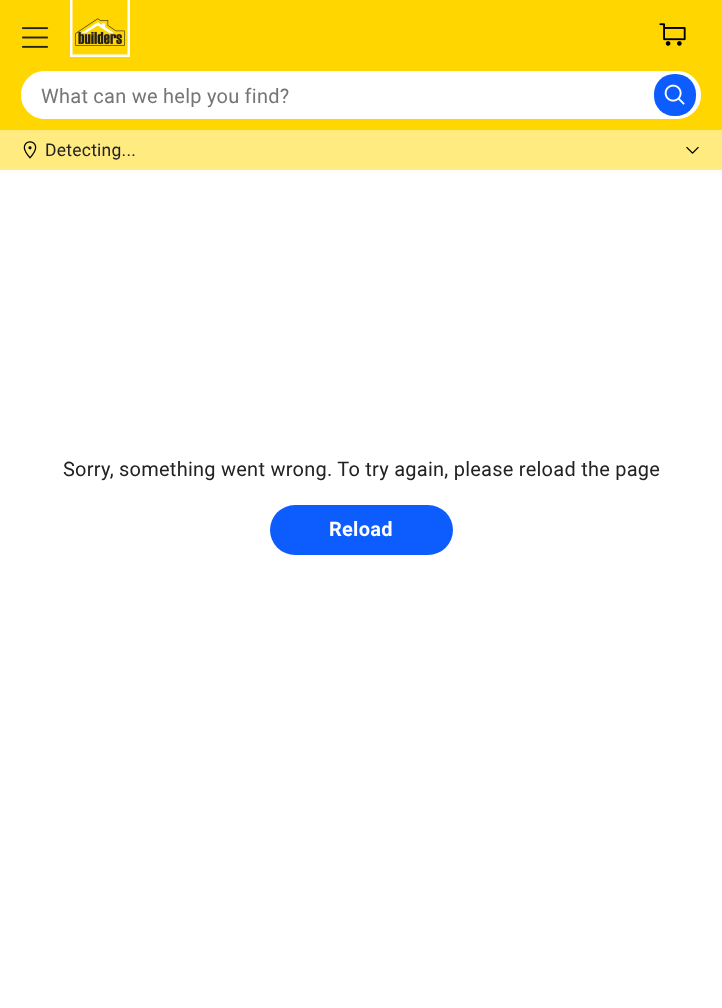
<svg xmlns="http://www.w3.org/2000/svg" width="722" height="1008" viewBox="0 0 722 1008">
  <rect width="100%" height="100%" fill="#fff"/>
  <path d="M0 0h722v130H0z" fill="#ffd600"/>
  <image x="21" y="27" width="28" height="21" href="img/1.png"/>
  <image x="70" y="0" width="60" height="57" href="img/2.png"/>
  <image x="659" y="23" width="27" height="23" href="img/3.png"/>
  <path d="M45 71H649V119H45C31.5 119 21 108.5 21 95C21 81.5 31.5 71 45 71Z" fill="#fff"/>
  <path d="M649 71H677C690.5 71 701 81.5 701 95C701 108.5 690.5 119 677 119H649Z" fill="#fff"/>
  <rect x="654" y="74" width="42" height="42" rx="20" fill="#0d5dfe"/>
  <image x="664" y="84" width="21" height="21" href="img/4.png"/>
  <path d="M0 130h722v40H0z" fill="#ffeb80"/>
  <image x="23" y="141" width="14" height="18" href="img/5.png"/>
  <image x="686" y="146" width="13" height="8" href="img/6.png"/>
  <rect x="270" y="505" width="183" height="50" rx="25" fill="#0d5dfe"/>
  <text x="41" y="103" font-family="Roboto" font-size="20" letter-spacing="0.25" fill="#757575">What can we help you find?</text>
  <text x="45" y="156" font-family="Roboto" font-size="17.5" letter-spacing="0.25" fill="#222223">Detecting...</text>
  <text x="63" y="476" font-family="Roboto" font-size="20" letter-spacing="0.25" fill="#222223">Sorry, something went wrong. To try again, please reload the page</text>
  <text x="329" y="536" font-family="Roboto" font-size="20" font-weight="bold" letter-spacing="0.25" fill="#fff">Reload</text>
</svg>
